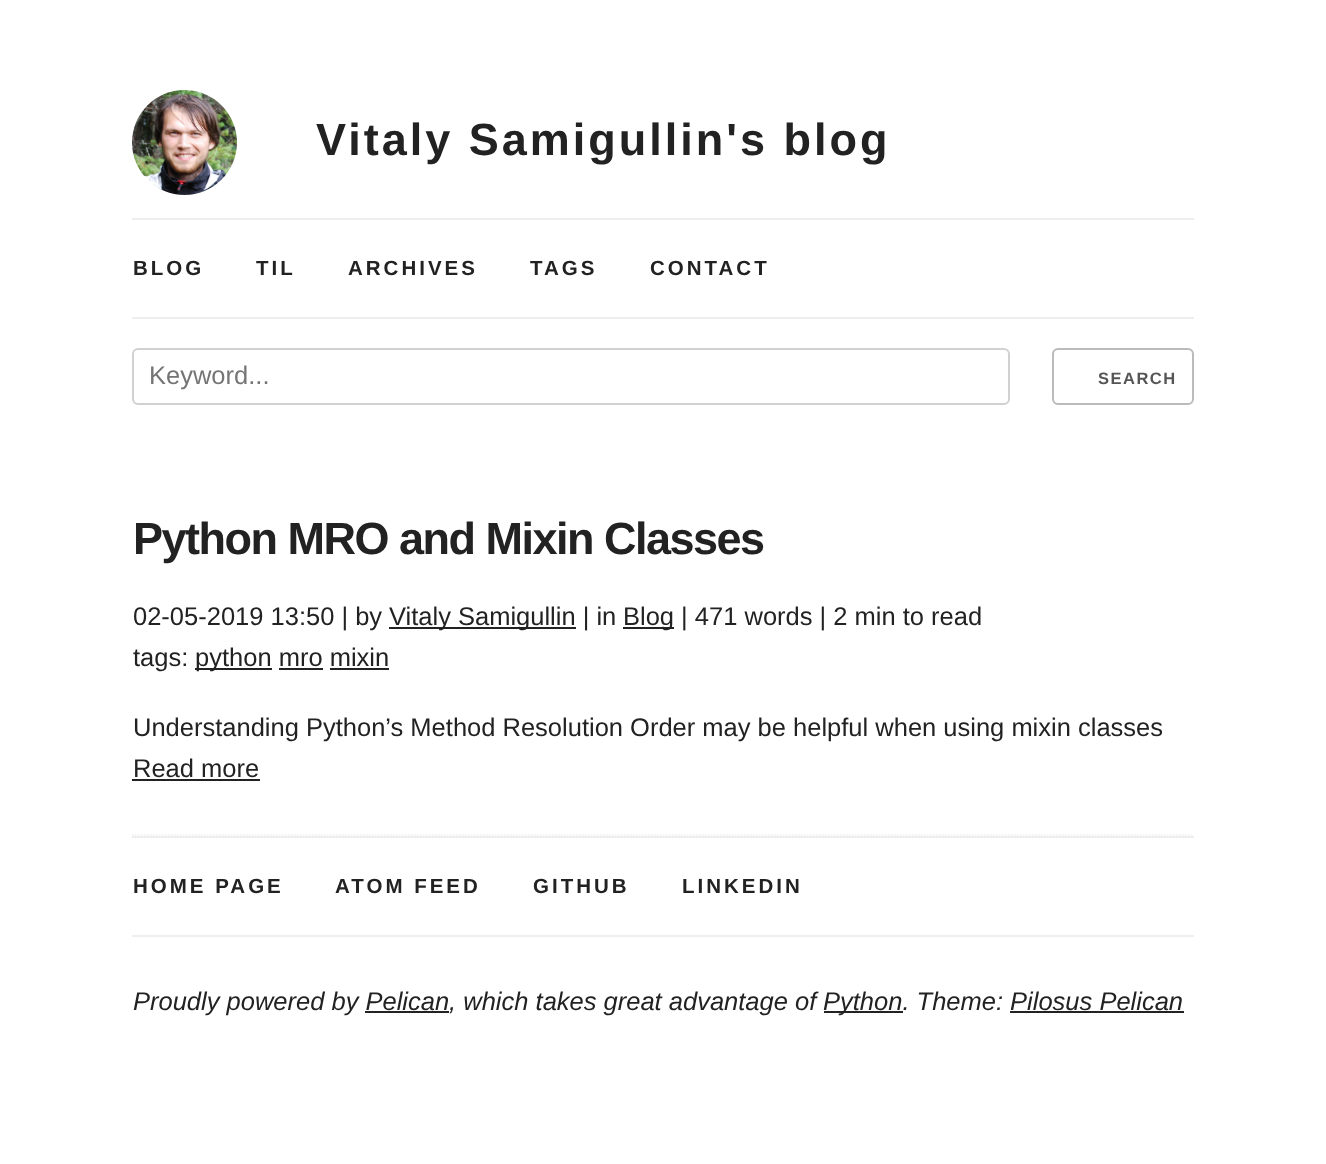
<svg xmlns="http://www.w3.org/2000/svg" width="1326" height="1164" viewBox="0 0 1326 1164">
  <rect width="100%" height="100%" fill="#fff"/>
  <image x="132" y="90" width="105" height="105" href="img/1.png"/>
  <path d="M132 218h1062v2H132z" fill="#eee"/>
  <path d="M132 317h1062v2H132z" fill="#eee"/>
  <rect x="133" y="349" width="876" height="55" rx="5" fill="none" stroke="#d1d1d1" stroke-width="2"/>
  <rect x="1053" y="349" width="140" height="55" rx="5" fill="none" stroke="#bbb" stroke-width="2"/>
  <path d="M132 835H1194" fill="none" stroke="#eee" stroke-width="1.5" stroke-dasharray="1.5 1.5"/>
  <path d="M389 627h187v2H389z" fill="#222"/>
  <path d="M623 627h51v2H623z" fill="#222"/>
  <path d="M195 668h77v2H195z" fill="#222"/>
  <path d="M279 668h44v2H279z" fill="#222"/>
  <path d="M330 668h59v2H330z" fill="#222"/>
  <path d="M132 779h128v2H132z" fill="#222"/>
  <path d="M132 836h1062v2H132z" fill="#eee"/>
  <path d="M132 935h1062v2H132z" fill="#eee"/>
  <path d="M824 1011h79v2H824z" fill="#222"/>
  <path d="M365 1011h84v2H365z" fill="#222"/>
  <path d="M1010 1011h174v2H1010z" fill="#222"/>
  <text x="316" y="155" font-family="Liberation Sans" font-size="45" font-weight="bold" letter-spacing="3" fill="#222">Vitaly Samigullin's blog</text>
  <g font-family="Liberation Sans" font-size="20.5" font-weight="bold" letter-spacing="3" fill="#222">
    <text x="133" y="275">BLOG</text>
    <text x="256" y="275">TIL</text>
    <text x="348" y="275">ARCHIVES</text>
    <text x="530" y="275">TAGS</text>
    <text x="650" y="275">CONTACT</text>
  </g>
  <text x="149" y="384" font-family="Liberation Sans" font-size="25.5" fill="#757575">Keyword...</text>
  <text x="1098" y="384" font-family="Liberation Sans" font-size="16.5" font-weight="bold" letter-spacing="1.5" fill="#555">SEARCH</text>
  <text x="133" y="554" font-family="Liberation Sans" font-size="45" font-weight="bold" letter-spacing="-1.5" fill="#222">Python MRO and Mixin Classes</text>
  <g font-family="Liberation Sans" font-size="25.5" fill="#222">
    <text x="133" y="625">02-05-2019 13:50 | by</text>
    <text x="389" y="625">Vitaly Samigullin | in</text>
    <text x="623" y="625">Blog | 471 words | 2 min to read</text>
    <text x="133" y="666">tags:</text>
    <text x="195" y="666">python mro mixin</text>
    <text x="133" y="736">Understanding Python’s Method Resolution Order may be helpful when using mixin classes</text>
    <text x="133" y="777">Read more</text>
  </g>
  <g font-family="Liberation Sans" font-size="20.5" font-weight="bold" letter-spacing="3" fill="#222">
    <text x="133" y="893">HOME PAGE</text>
    <text x="335" y="893">ATOM FEED</text>
    <text x="533" y="893">GITHUB</text>
    <text x="682" y="893">LINKEDIN</text>
  </g>
  <g font-family="Liberation Sans" font-size="25.5" font-style="italic" fill="#222">
    <text x="133" y="1010">Proudly powered by Pelican, which takes great advantage of</text>
    <text x="823" y="1010">Python. Theme: Pilosus Pelican</text>
  </g>
</svg>
